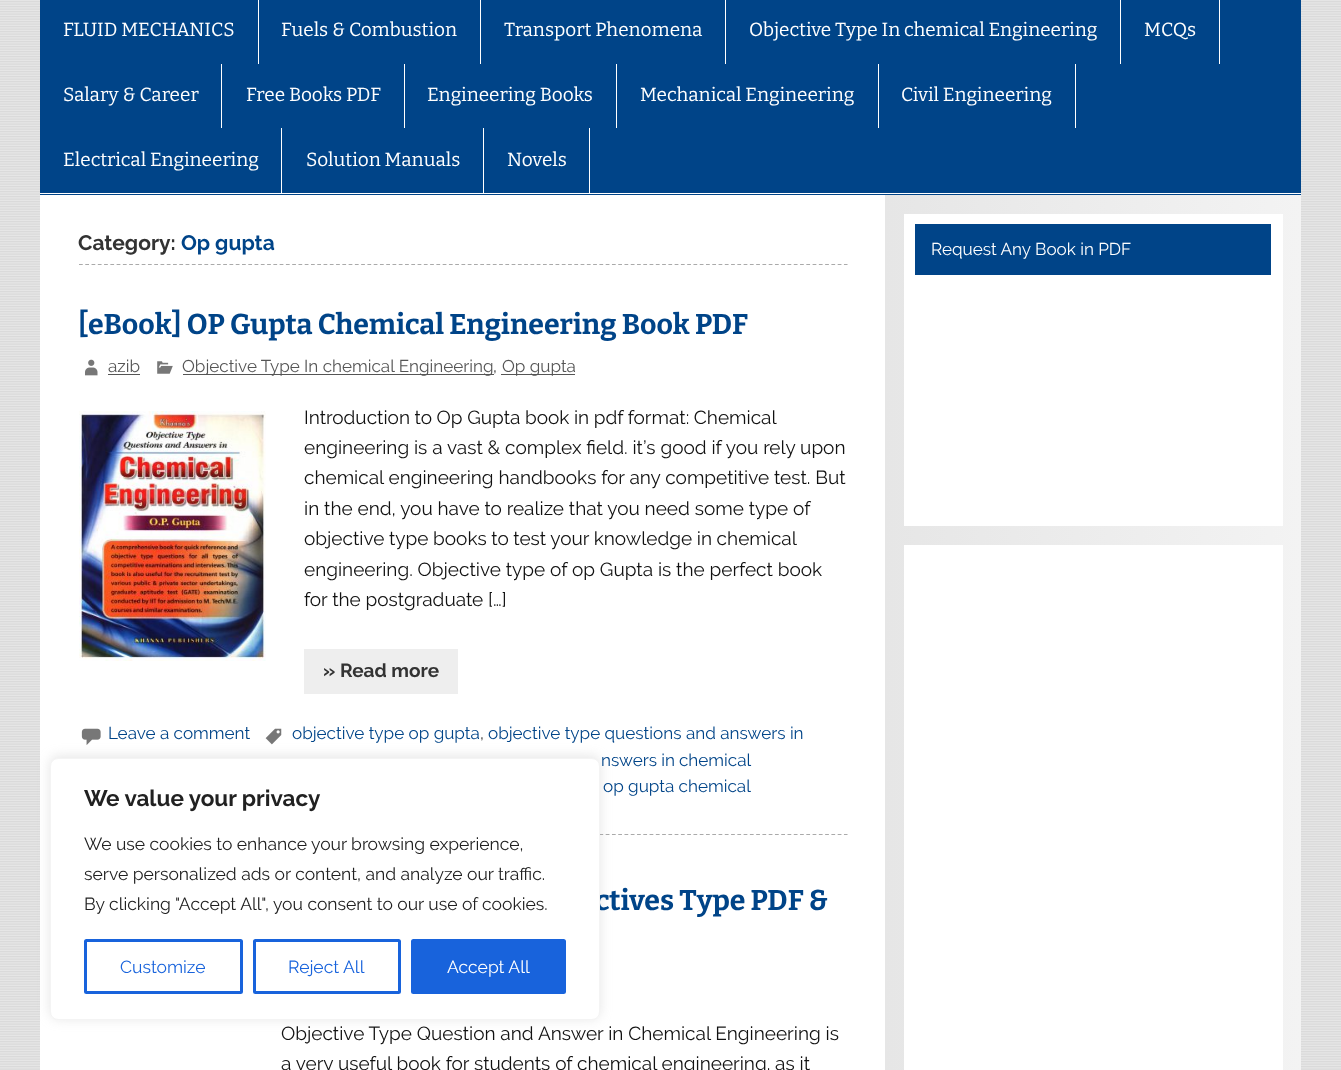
<svg xmlns="http://www.w3.org/2000/svg" width="1341" height="1070" viewBox="0 0 1341 1070">
  <defs>
    <linearGradient id="g1" gradientUnits="userSpaceOnUse" x1="885" y1="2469" x2="1301" y2="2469"><stop offset="0" stop-color="#e6e6e6"/><stop offset="1" stop-color="#f3f3f3"/></linearGradient>
  </defs>
  <rect width="100%" height="100%" fill="#e5e5e5"/>
  <image x="0" y="1" width="1341" height="1069" href="img/1.png"/>
  <path d="M40 193h1261v877H40z" fill="#fff"/>
  <path d="M40 194h1261v1H40z" fill="#048"/>
  <path d="M40 0h1261v193H40z" fill="#048"/>
  <path d="M258 0h1v64H258z" fill="#fff"/>
  <path d="M480 0h1v64H480z" fill="#fff"/>
  <path d="M725 0h1v64H725z" fill="#fff"/>
  <path d="M1120 0h1v64H1120z" fill="#fff"/>
  <path d="M1219 0h1v64H1219z" fill="#fff"/>
  <path d="M221 64h1v64H221z" fill="#fff"/>
  <path d="M404 64h1v64H404z" fill="#fff"/>
  <path d="M616 64h1v64H616z" fill="#fff"/>
  <path d="M878 64h1v64H878z" fill="#fff"/>
  <path d="M1075 64h1v64H1075z" fill="#fff"/>
  <path d="M281 128h1v65H281z" fill="#fff"/>
  <path d="M483 128h1v65H483z" fill="#fff"/>
  <path d="M589 128h1v65H589z" fill="#fff"/>
  <path d="M79 264.5H847.5" fill="none" stroke="#aaa" stroke-width="1.2" stroke-dasharray="3.75 2.52"/>
  <path d="M79 834.5H847.5" fill="none" stroke="#aaa" stroke-width="1.2" stroke-dasharray="3.75 2.52"/>
  <image x="85" y="359" width="13" height="17" href="img/2.png"/>
  <path d="M108 374h32v1H108z" fill="#555"/>
  <image x="157" y="361" width="16" height="13" href="img/3.png"/>
  <path d="M183 374h311v1H183z" fill="#555"/>
  <path d="M501 374h74v1H501z" fill="#555"/>
  <image x="79" y="411" width="187" height="250" href="img/4.png"/>
  <path d="M304 649h154v45H304z" fill="#eee"/>
  <image x="81" y="728" width="20" height="17" href="img/5.png"/>
  <image x="265" y="728" width="17" height="17" href="img/6.png"/>
  <path d="M885 195h416v875H885z" fill="url(#g1)"/>
  <path d="M904 214h379v312H904z" fill="#fff"/>
  <path d="M915 224h356v51H915z" fill="#048"/>
  <path d="M904 545h379v525H904z" fill="#fff"/>
  <rect x="50" y="756" width="550" height="263" rx="8" fill="#acabab4d" filter="blur(6px)"/>
  <g font-family="Bitter" font-size="19" fill="#fff">
    <text x="63" y="36">FLUID MECHANICS</text>
    <text x="281" y="36">Fuels &amp; Combustion</text>
    <text x="504" y="36">Transport Phenomena</text>
    <text x="749" y="36">Objective Type In chemical Engineering</text>
    <text x="1144" y="36">MCQs</text>
    <text x="63" y="101">Salary &amp; Career</text>
    <text x="246" y="101">Free Books PDF</text>
    <text x="427" y="101">Engineering Books</text>
    <text x="640" y="101">Mechanical Engineering</text>
    <text x="901" y="101">Civil Engineering</text>
    <text x="63" y="166">Electrical Engineering</text>
    <text x="306" y="166">Solution Manuals</text>
    <text x="507" y="166">Novels</text>
  </g>
  <text x="78" y="250" font-family="Raleway" font-size="21" font-weight="bold" fill="#333">Category:</text>
  <text x="181" y="250" font-family="Raleway" font-size="21" font-weight="bold" fill="#048">Op gupta</text>
  <text x="78" y="334" font-family="Bitter" font-size="28.5" font-weight="bold" fill="#048">[eBook] OP Gupta Chemical Engineering Book PDF</text>
  <g font-family="Raleway" font-size="17.1" fill="#555">
    <text x="108" y="372">azib</text>
    <text x="182" y="372">Objective Type In chemical Engineering</text>
  </g>
  <text x="493" y="372" font-family="Raleway" font-size="17.1" fill="#333">,</text>
  <text x="502" y="372" font-family="Raleway" font-size="17.1" fill="#555">Op gupta</text>
  <g font-family="Raleway" font-size="19" fill="#111">
    <text x="304" y="424" word-spacing="-0.25">Introduction to Op Gupta book in pdf format: Chemical</text>
    <text x="304" y="454">engineering is a vast &amp; complex field. it’s good if you rely upon</text>
    <text x="304" y="484">chemical engineering handbooks for any competitive test. But</text>
    <text x="304" y="515">in the end, you have to realize that you need some type of</text>
    <text x="304" y="545" word-spacing="-0.25">objective type books to test your knowledge in chemical</text>
    <text x="304" y="576">engineering. Objective type of op Gupta is the perfect book</text>
    <text x="304" y="606">for the postgraduate […]</text>
  </g>
  <text x="323" y="677" font-family="Raleway" font-size="19" font-weight="bold" fill="#333">» Read more</text>
  <g font-family="Raleway" font-size="17.1" fill="#048">
    <text x="108" y="739">Leave a comment</text>
    <text x="292" y="739">objective type op gupta</text>
  </g>
  <text x="480" y="739" font-family="Raleway" font-size="17.1" fill="#333">,</text>
  <g font-family="Raleway" font-size="17.1" fill="#048">
    <text x="488" y="739">objective type questions and answers in</text>
    <text x="601" y="766" word-spacing="-0.25">nswers in chemical</text>
    <text x="603" y="792">op gupta chemical</text>
  </g>
  <text x="595" y="910" font-family="Bitter" font-size="28.5" font-weight="bold" fill="#048">ctives Type PDF &amp;</text>
  <g font-family="Raleway" font-size="19" fill="#111">
    <text x="281" y="1040">Objective Type Question and Answer in Chemical Engineering is</text>
    <text x="281" y="1070">a very useful book for students of chemical engineering. as it</text>
  </g>
  <text x="931" y="255" font-family="Raleway" font-size="17.1" fill="#fff">Request Any Book in PDF</text>
  <rect x="50.5" y="758.5" width="549" height="261" rx="7.5" fill="#fff" stroke="#f4f4f4"/>
  <text x="84" y="806" font-family="Raleway" font-size="22.5" font-weight="bold" fill="#212121">We value your privacy</text>
  <g font-family="Raleway" font-size="17.5" fill="#212121">
    <text x="84" y="850">We use cookies to enhance your browsing experience,</text>
    <text x="84" y="880">serve personalized ads or content, and analyze our traffic.</text>
    <text x="84" y="910">By clicking "Accept All", you consent to our use of cookies.</text>
  </g>
  <rect x="85.5" y="940.5" width="156" height="52" rx="1" fill="none" stroke="#1863dc" stroke-width="3"/>
  <text x="120" y="973" font-family="Raleway" font-size="17.5" fill="#1863dc">Customize</text>
  <rect x="254.5" y="940.5" width="145" height="52" rx="1" fill="none" stroke="#1863dc" stroke-width="3"/>
  <text x="288" y="973" font-family="Raleway" font-size="17.5" fill="#1863dc">Reject All</text>
  <rect x="412.5" y="940.5" width="152" height="52" rx="1" fill="#1863dc" stroke="#1863dc" stroke-width="3"/>
  <text x="447" y="973" font-family="Raleway" font-size="17.5" fill="#fff">Accept All</text>
</svg>
